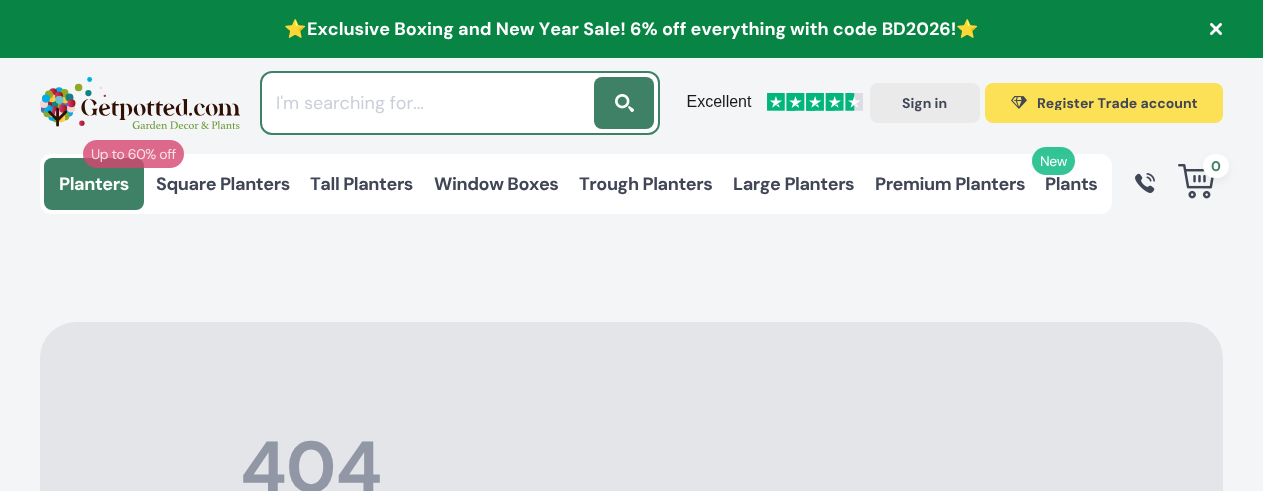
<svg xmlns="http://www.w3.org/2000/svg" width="1263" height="491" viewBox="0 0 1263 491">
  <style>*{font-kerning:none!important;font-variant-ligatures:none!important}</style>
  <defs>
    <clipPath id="clip1"><path d="M1037 96h160v14H1037z"/></clipPath>
  </defs>
  <rect width="100%" height="100%" fill="#f4f5f6"/>
  <path d="M0 0h1263v58H0z" fill="#088444"/>
  <image x="1210" y="23" width="12" height="12" href="img/1.png"/>
  <image x="40" y="77" width="200" height="52" href="img/2.png"/>
  <rect x="261" y="72" width="398" height="62" rx="11" fill="#fff" stroke="#3f8167" stroke-width="2"/>
  <rect x="594" y="77" width="60" height="52" rx="8" fill="#3f8167"/>
  <image x="615" y="94" width="19" height="18" href="img/3.png"/>
  <image x="687" y="93" width="176" height="18" href="img/4.png"/>
  <rect x="870" y="83" width="110" height="40" rx="8" fill="#eaeaeb"/>
  <rect x="985" y="83" width="238" height="40" rx="8" fill="#fce156"/>
  <image x="1011" y="96" width="16" height="13" href="img/5.png"/>
  <rect x="40" y="154" width="1072" height="60" rx="12" fill="#fff"/>
  <rect x="44" y="158" width="100" height="52" rx="8" fill="#3f8167"/>
  <rect x="83" y="140" width="101" height="28" rx="14" fill="#d64571cc"/>
  <rect x="1032" y="147" width="43" height="28" rx="14" fill="#00b67acc"/>
  <image x="1178" y="164" width="36" height="35" href="img/6.png"/>
  <rect x="1203" y="158" width="26" height="24" rx="12" fill="#0000000d" filter="blur(4px)"/>
  <rect x="1203" y="154" width="26" height="24" rx="12" fill="#fff"/>
  <image x="1135" y="173" width="20" height="20" href="img/7.png"/>
  <rect x="40" y="322" width="1183" height="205" rx="36" fill="#e3e5e8"/>
  <text x="284" y="35" font-family="Noto Color Emoji" font-size="18" font-weight="bold" fill="#fff">⭐</text>
  <text x="307" y="35" font-family="DM Sans" font-size="18" font-weight="bold" fill="#fff">Exclusive Boxing and New Year Sale! 6% off everything</text>
  <text x="790" y="35" font-family="DM Sans" font-size="18" font-weight="bold" fill="#fff">with code BD2026!</text>
  <text x="956" y="35" font-family="Noto Color Emoji" font-size="18" font-weight="bold" fill="#fff">⭐</text>
  <text x="276" y="109" font-family="DM Sans" font-size="18" fill="#c9ceda">I'm searching for...</text>
  <text x="902" y="108" font-family="DM Sans" font-size="14" font-weight="bold" fill="#404656">Sign in</text>
  <g clip-path="url(#clip1)">
    <text x="1037" y="108" font-family="DM Sans" font-size="14" font-weight="bold" fill="#404656">Register Trade account</text>
  </g>
  <text x="91" y="159" font-family="DM Sans" font-size="14" letter-spacing="-0.4" fill="#f7e1e8">Up to 60% off</text>
  <text x="59" y="190" font-family="DM Sans" font-size="18" font-weight="bold" letter-spacing="-0.4" fill="#fff">Planters</text>
  <g font-family="DM Sans" font-size="18" font-weight="bold" letter-spacing="-0.4" fill="#404656">
    <text x="156" y="190">Square Planters</text>
    <text x="310" y="190">Tall Planters</text>
    <text x="434" y="190">Window Boxes</text>
    <text x="579" y="190">Trough Planters</text>
    <text x="733" y="190">Large Planters</text>
  </g>
  <text x="1040" y="166" font-family="DM Sans" font-size="14" letter-spacing="-0.4" fill="#fff">New</text>
  <g font-family="DM Sans" font-size="18" font-weight="bold" letter-spacing="-0.4" fill="#404656">
    <text x="875" y="190">Premium Planters</text>
    <text x="1045" y="190">Plants</text>
  </g>
  <text x="1211" y="171" font-family="DM Sans" font-size="14" font-weight="bold" fill="#3f8167">0</text>
  <text x="240" y="492" font-family="DM Sans" font-size="72" font-weight="bold" letter-spacing="-1" fill="#9297a5">404</text>
</svg>
